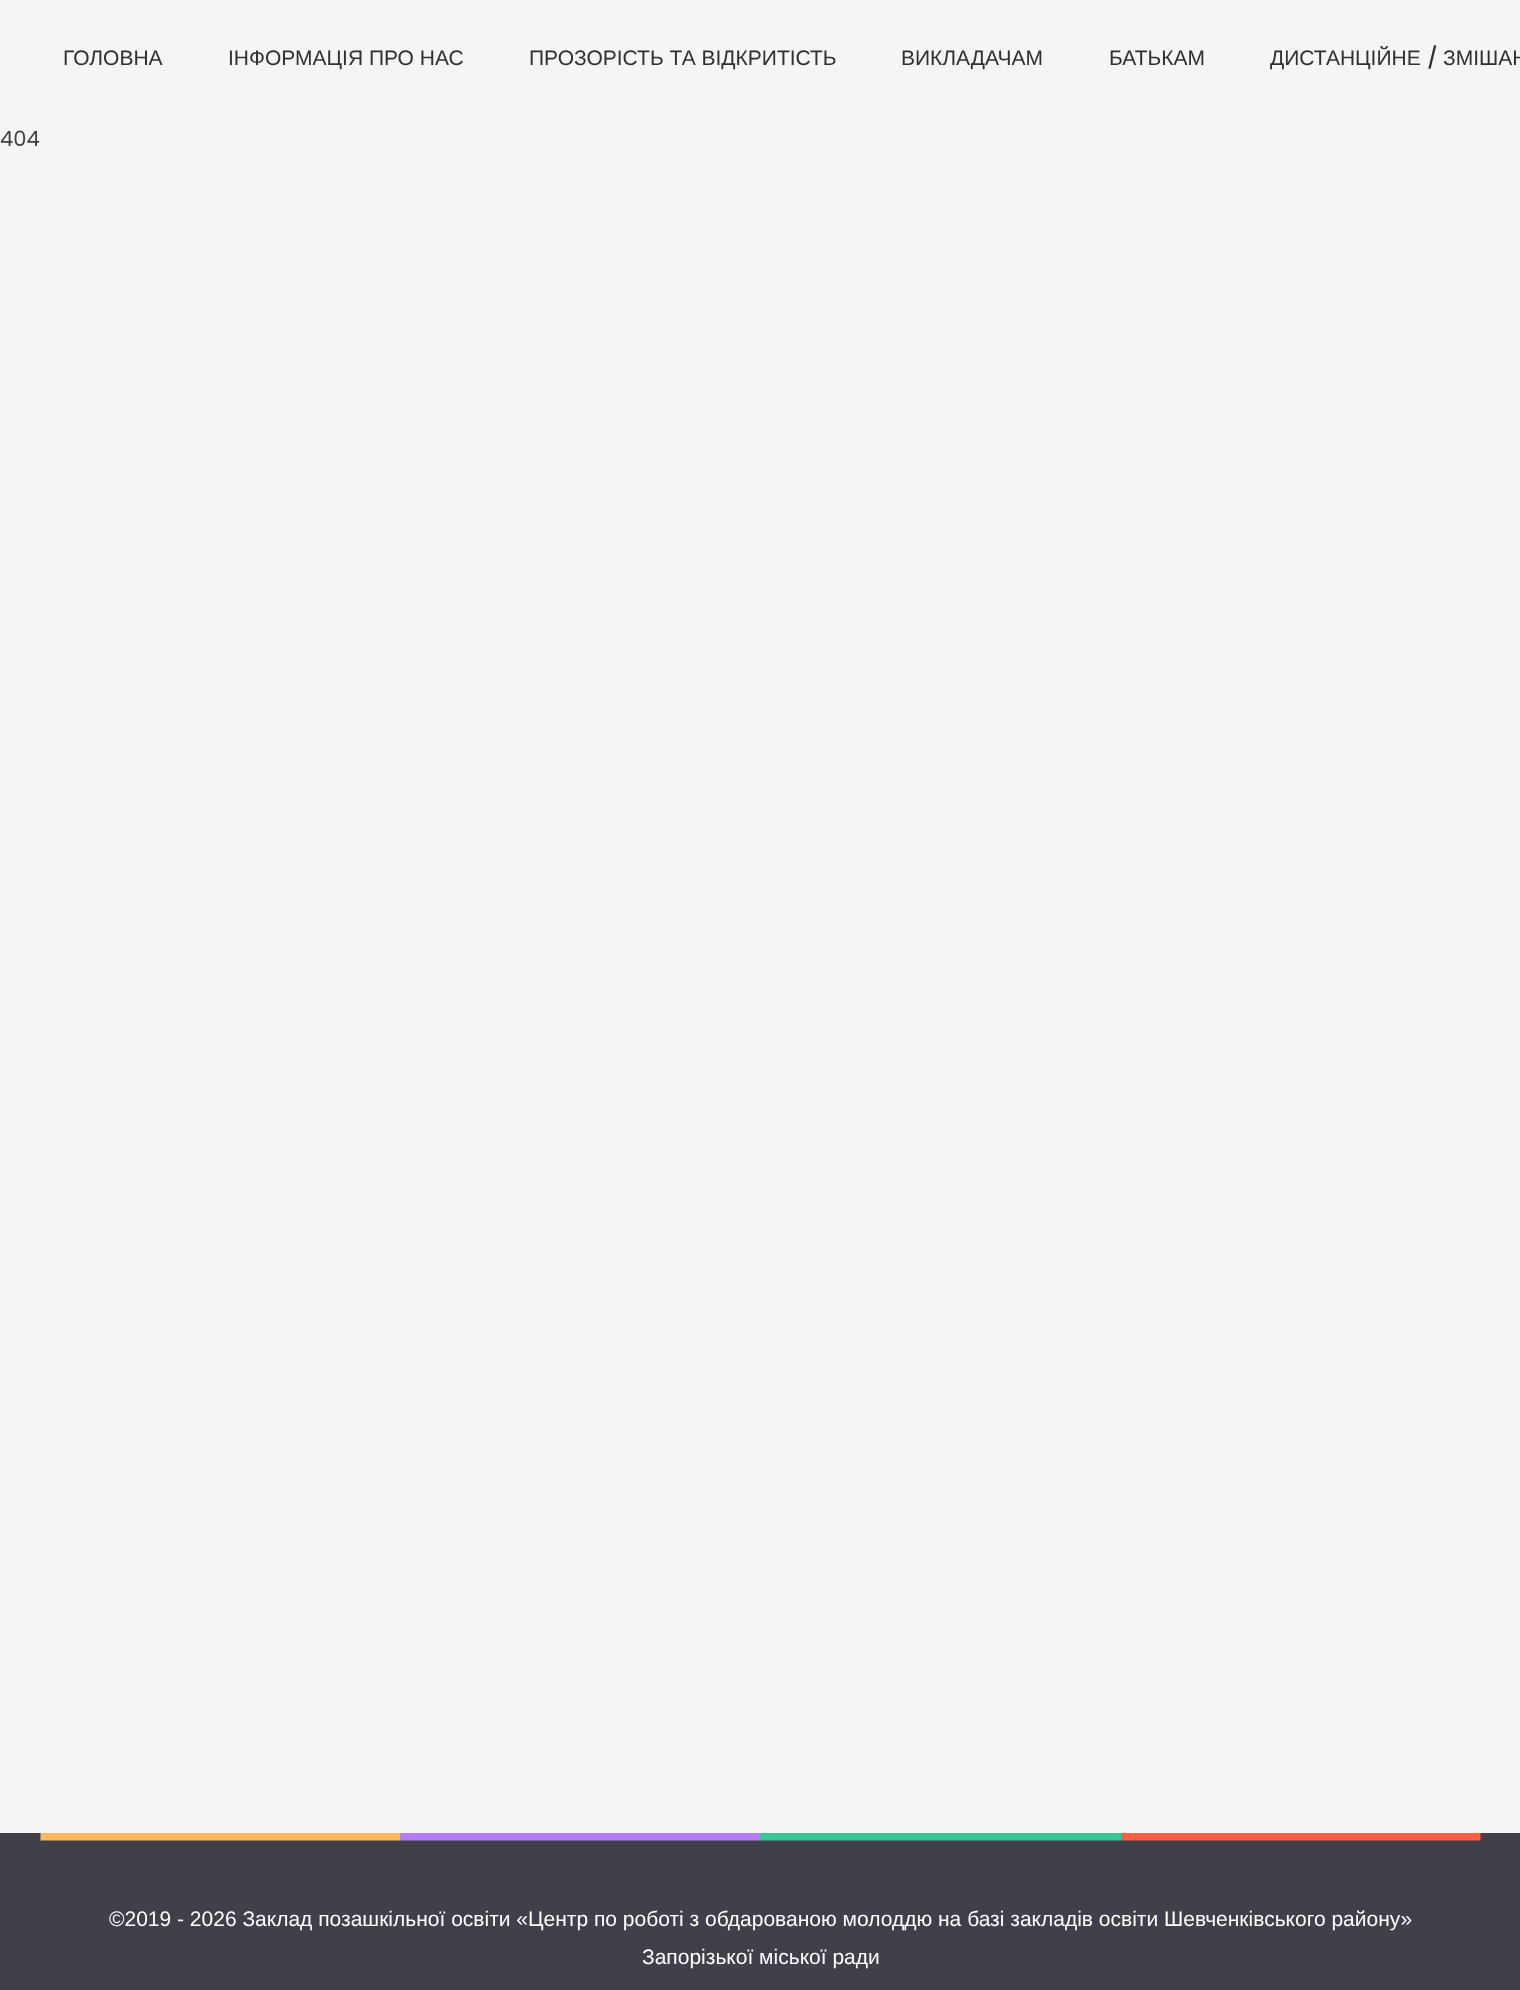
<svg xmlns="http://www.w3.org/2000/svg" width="1520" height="1990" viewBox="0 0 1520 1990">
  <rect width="100%" height="100%" fill="#f5f5f5"/>
  <path d="M0 1833h1520v157H0z" fill="#3f4049"/>
  <image x="40" y="1833" width="1441" height="8" href="img/1.png"/>
  <g font-family="Liberation Sans" font-size="21" fill="#303030">
    <text x="63" y="65">ГОЛОВНА</text>
    <text x="228" y="65">ІНФОРМАЦІЯ ПРО НАС</text>
    <text x="529" y="65">ПРОЗОРІСТЬ ТА ВІДКРИТІСТЬ</text>
    <text x="901" y="65">ВИКЛАДАЧАМ</text>
    <text x="1109" y="65">БАТЬКАМ</text>
    <text x="1270" y="65">ДИСТАНЦІЙНЕ</text>
  </g>
  <text x="1427" y="65" font-family="Poppins" font-size="21" font-weight="500" fill="#303030">/</text>
  <text x="1443" y="65" font-family="Liberation Sans" font-size="21" fill="#303030">ЗМІШАН</text>
  <text x="0" y="146" font-family="Poppins" font-size="21" fill="#404044">404</text>
  <g font-family="Liberation Sans" font-size="21" fill="#fff">
    <text x="109" y="1926">©2019 - 2026 Заклад позашкільної освіти «Центр по роботі з обдарованою молоддю на базі закладів освіти Шевченківського району»</text>
    <text x="642" y="1964">Запорізької міської ради</text>
  </g>
</svg>
